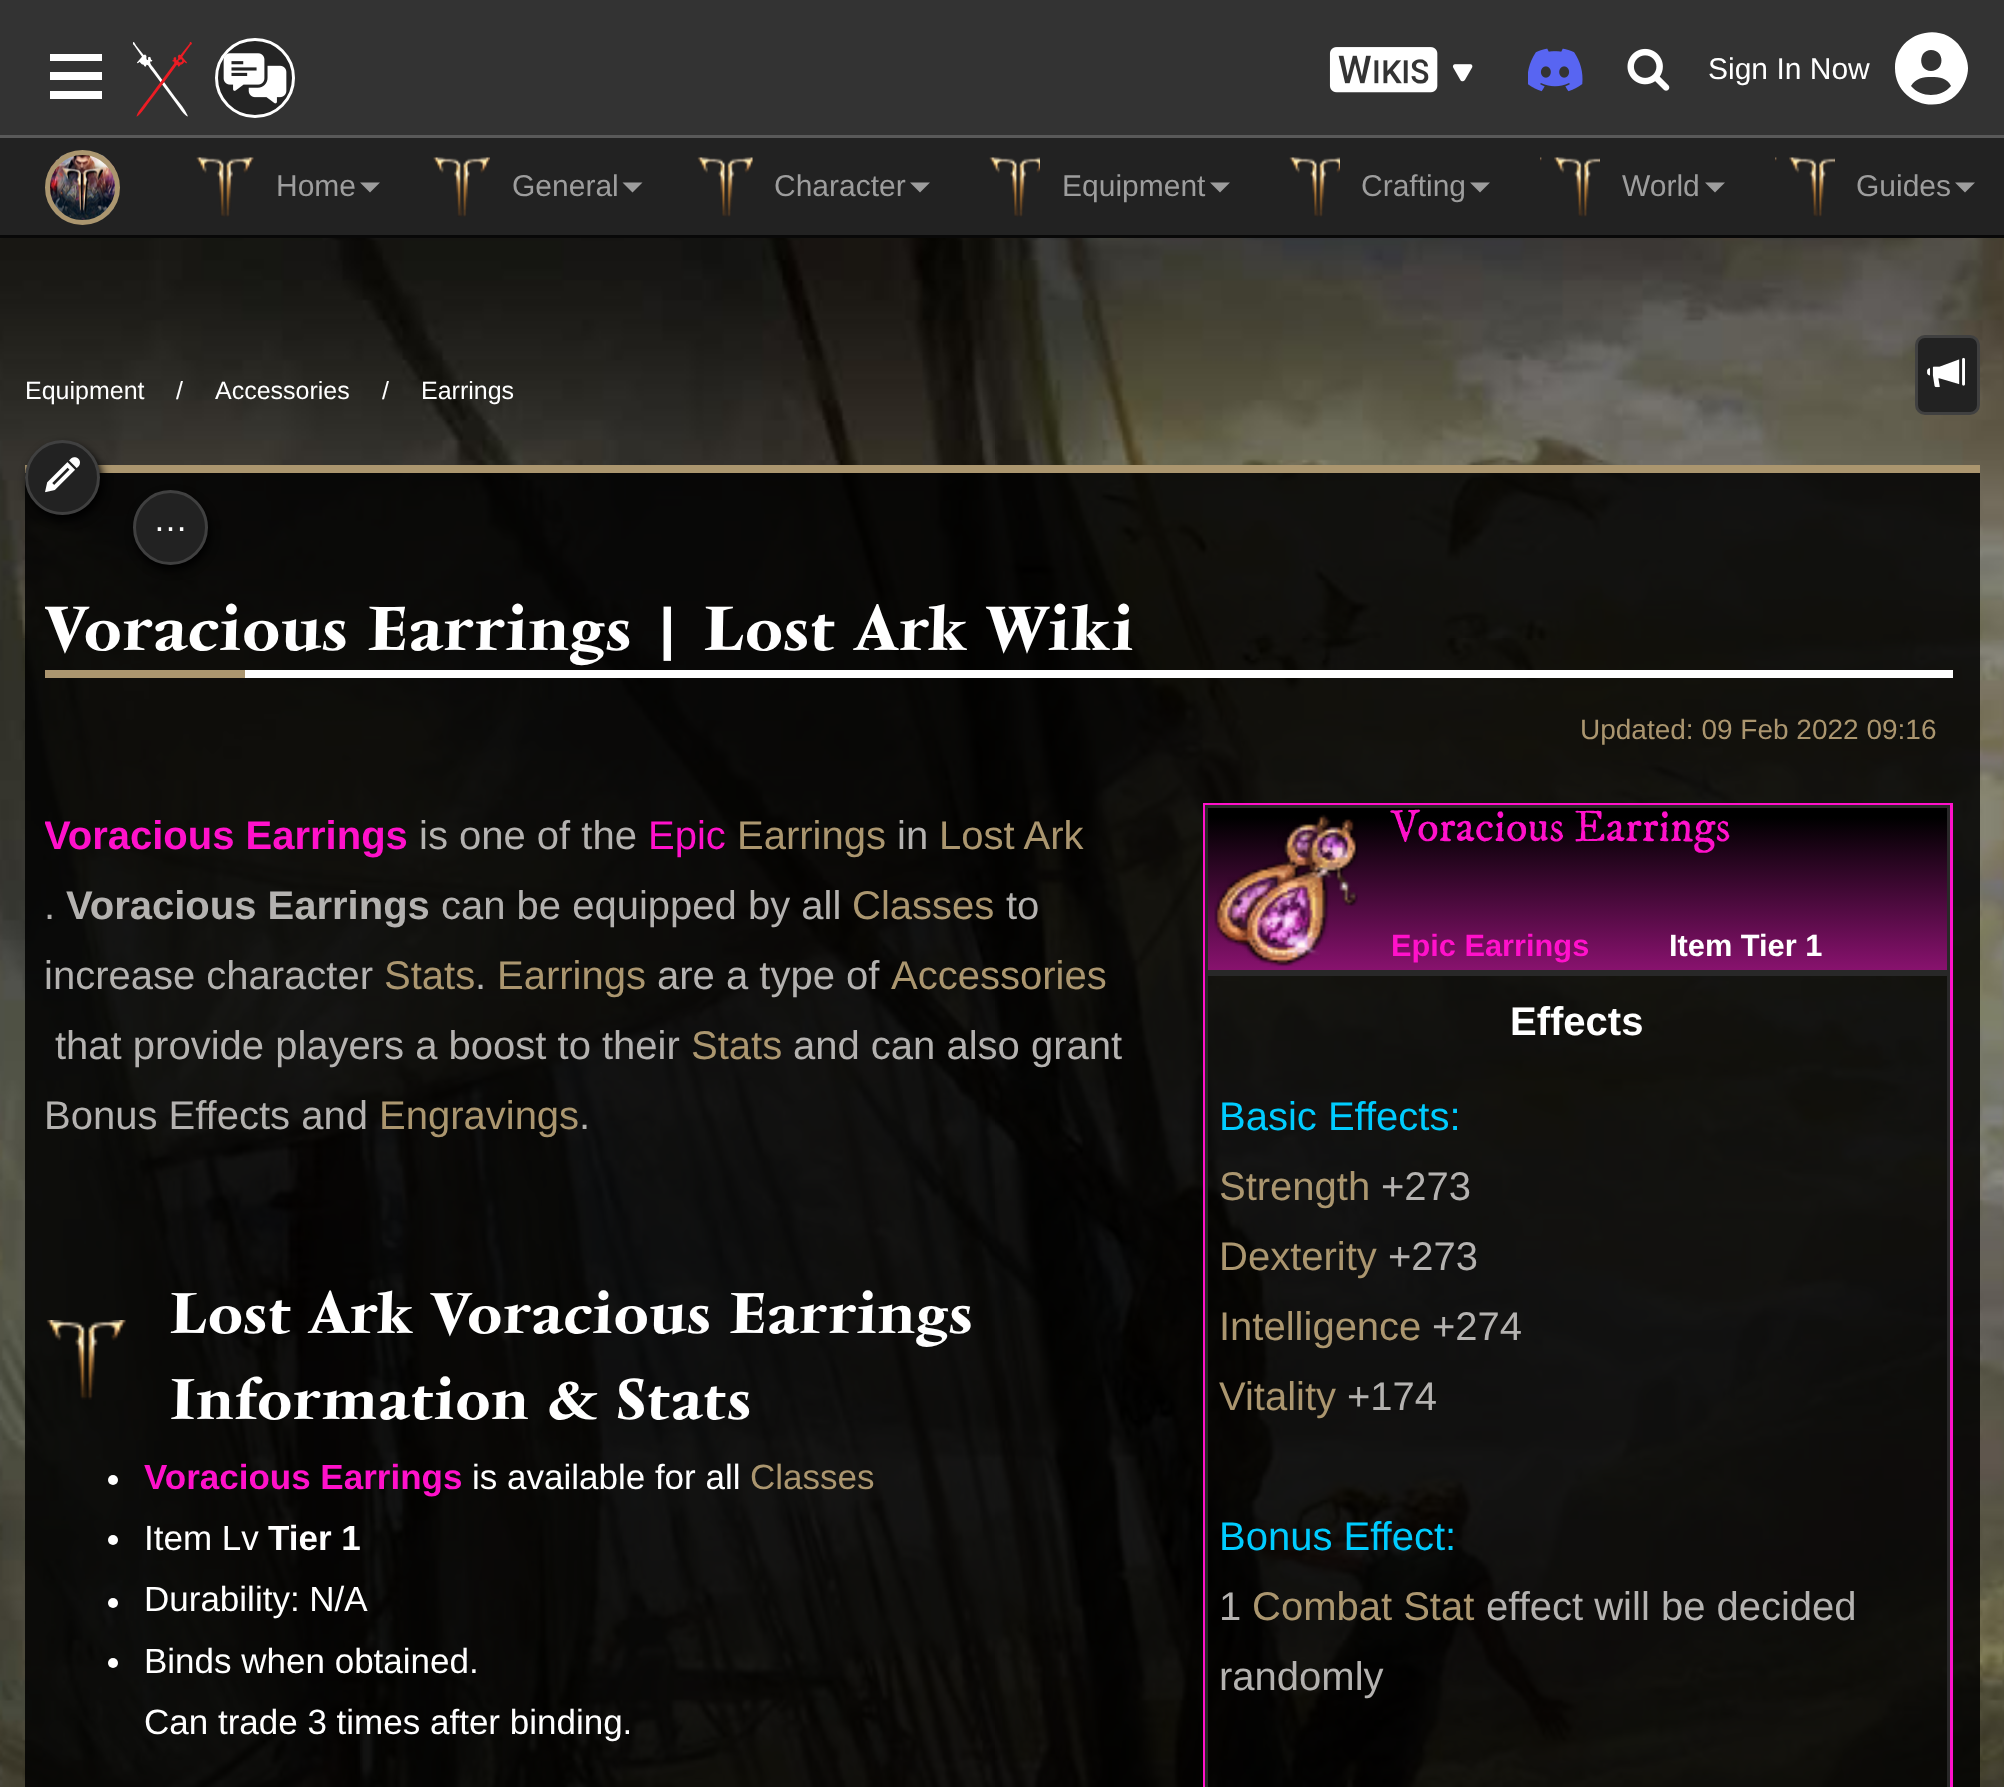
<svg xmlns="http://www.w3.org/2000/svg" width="2004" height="1787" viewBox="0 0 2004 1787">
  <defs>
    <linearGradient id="g1" gradientUnits="userSpaceOnUse" x1="1578" y1="970" x2="1578" y2="808"><stop offset="0" stop-color="#88126e"/><stop offset="0.94" stop-color="#000"/></linearGradient>
    <clipPath id="clip1"><path d="M45 548h1918v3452H45z"/></clipPath>
  </defs>
  <rect width="100%" height="100%" fill="#fff"/>
  <path d="M0 0h2004v135H0z" fill="#333"/>
  <path d="M0 135h2004v3H0z" fill="#595959"/>
  <path d="M50 54H102V61H50ZM50 72H102V80H50ZM102 91V99H50V91Z" fill="#fff"/>
  <image x="133" y="42" width="59" height="75" href="img/1.png"/>
  <circle cx="255" cy="78" r="38.5" fill="#242424" stroke="#fff" stroke-width="3"/>
  <image x="223" y="53" width="64" height="51" href="img/2.png"/>
  <image x="1329" y="47" width="144" height="46" href="img/3.png"/>
  <image x="1528" y="48" width="55" height="44" href="img/4.png"/>
  <image x="1627" y="48" width="43" height="43" href="img/5.png"/>
  <path d="M1951 86C1947 78 1940 77 1931 77C1923 77 1916 78 1911 86C1921 98 1941 98 1951 86ZM1895 68C1895 33 1942 19 1961 48C1965 54 1968 61 1968 68C1968 76 1965 83 1961 89C1942 118 1895 104 1895 68ZM1931 71C1945 71 1945 50 1931 50C1918 50 1918 71 1931 71Z" fill="#fff"/>
  <path d="M0 138h2004v97H0z" fill="#222"/>
  <path d="M0 235h2004v3H0z" fill="#080808"/>
  <image x="50" y="154" width="65" height="67" href="img/6.png"/>
  <circle cx="82.5" cy="187.5" r="35" fill="none" stroke="#ab966f" stroke-width="5"/>
  <image x="196" y="157" width="58" height="60" href="img/7.png"/>
  <path d="M360 182.5H380L370 192.5Z" fill="#9d9d9d"/>
  <image x="433" y="157" width="57" height="60" href="img/8.png"/>
  <path d="M622.5 182.5H642.5L632.5 192.5Z" fill="#9d9d9d"/>
  <image x="697" y="157" width="56" height="60" href="img/9.png"/>
  <path d="M910 182.5H930L920 192.5Z" fill="#9d9d9d"/>
  <image x="989" y="157" width="51" height="60" href="img/10.png"/>
  <path d="M1210 182.5H1230L1220 192.5Z" fill="#9d9d9d"/>
  <image x="1289" y="157" width="51" height="60" href="img/10.png"/>
  <path d="M1470 182.5H1490L1480 192.5Z" fill="#9d9d9d"/>
  <image x="1540" y="157" width="60" height="60" href="img/11.png"/>
  <path d="M1705 182.5H1725L1715 192.5Z" fill="#9d9d9d"/>
  <image x="1775" y="157" width="60" height="60" href="img/12.png"/>
  <path d="M1955 182.5H1975L1965 192.5Z" fill="#9d9d9d"/>
  <image x="0" y="238" width="2004" height="1549" href="img/13.png"/>
  <rect x="1916.5" y="336.5" width="62" height="77" rx="8.5" fill="#222" stroke="#404040" stroke-width="3"/>
  <image x="1927" y="357" width="38" height="31" href="img/14.png"/>
  <path d="M25 473h1955v1314H25z" fill="#000000d9"/>
  <path d="M25 465h1955v8H25z" fill="#ab966f"/>
  <rect x="28" y="445" width="75" height="75" rx="37.5" fill="#000" filter="blur(5px)"/>
  <circle cx="62.5" cy="477.5" r="36" fill="#222" stroke="#404040" stroke-width="3"/>
  <image x="45" y="457" width="35" height="36" href="img/15.png"/>
  <rect x="135" y="495" width="75" height="75" rx="37.5" fill="#000" filter="blur(5px)"/>
  <circle cx="170.5" cy="527.5" r="36" fill="#222" stroke="#404040" stroke-width="3"/>
  <path d="M245 670h1708v8H245z" fill="#fff"/>
  <path d="M45 670h200v8H45z" fill="#ab966f"/>
  <path d="M1204.5 804.5h747v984H1204.5z" fill="none" stroke="#ff11ca" stroke-width="3"/>
  <path d="M1208 808h739v162H1208z" fill="url(#g1)"/>
  <path d="M1206.5 806.5h742v165H1206.5z" fill="none" stroke="#282828" stroke-width="3"/>
  <image x="1214" y="814" width="144" height="153" href="img/16.png"/>
  <path d="M1206.5 974.5h742v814H1206.5z" fill="none" stroke="#282828" stroke-width="3"/>
  <image x="46" y="1320" width="80" height="80" href="img/17.png"/>
  <circle cx="113" cy="1480" r="5" fill="#fff"/>
  <circle cx="113" cy="1540" r="5" fill="#fff"/>
  <circle cx="113" cy="1603" r="5" fill="#fff"/>
  <circle cx="113" cy="1663" r="5" fill="#fff"/>
  <text x="1708" y="79" font-family="Liberation Sans" font-size="30" fill="#fff">Sign In Now</text>
  <g font-family="Liberation Sans" font-size="30" fill="#9d9d9d">
    <text x="276" y="196">Home</text>
    <text x="512" y="196">General</text>
    <text x="774" y="196">Character</text>
    <text x="1062" y="196">Equipment</text>
    <text x="1361" y="196">Crafting</text>
    <text x="1622" y="196">World</text>
    <text x="1856" y="196">Guides</text>
  </g>
  <g font-family="Liberation Sans" font-size="25" fill="#fff">
    <text x="25" y="399">Equipment</text>
    <text x="176" y="399">/</text>
    <text x="215" y="399">Accessories</text>
    <text x="382" y="399">/</text>
    <text x="421" y="399">Earrings</text>
  </g>
  <text x="153" y="531" font-family="Liberation Sans" font-size="35" fill="#fff">…</text>
  <g clip-path="url(#clip1)">
    <text x="44" y="650" font-family="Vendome" font-size="65" font-weight="500" fill="#fff">Voracious Earrings | Lost Ark Wiki</text>
  </g>
  <text x="1580" y="739" font-family="Liberation Sans" font-size="28" fill="#ab966f">Updated: 09 Feb 2022 09:16</text>
  <g clip-path="url(#clip1)">
    <text x="44" y="849" font-family="Liberation Sans" font-size="40" font-weight="bold" fill="#ff11ca">Voracious Earrings</text>
  </g>
  <text x="419" y="849" font-family="Liberation Sans" font-size="40" fill="#b4b2b0">is one of the</text>
  <text x="648" y="849" font-family="Liberation Sans" font-size="40" fill="#ff11ca">Epic</text>
  <text x="737" y="849" font-family="Liberation Sans" font-size="40" fill="#ab966f">Earrings</text>
  <text x="897" y="849" font-family="Liberation Sans" font-size="40" fill="#b4b2b0">in</text>
  <text x="939" y="849" font-family="Liberation Sans" font-size="40" fill="#ab966f">Lost Ark</text>
  <text x="44" y="919" font-family="Liberation Sans" font-size="40" fill="#b4b2b0">.</text>
  <text x="66" y="919" font-family="Liberation Sans" font-size="40" font-weight="bold" fill="#b4b2b0">Voracious Earrings</text>
  <text x="441" y="919" font-family="Liberation Sans" font-size="40" fill="#b4b2b0">can be equipped by all</text>
  <text x="852" y="919" font-family="Liberation Sans" font-size="40" fill="#ab966f">Classes</text>
  <g font-family="Liberation Sans" font-size="40" fill="#b4b2b0">
    <text x="1006" y="919">to</text>
    <text x="44" y="989">increase character</text>
  </g>
  <text x="384" y="989" font-family="Liberation Sans" font-size="40" fill="#ab966f">Stats</text>
  <text x="475" y="989" font-family="Liberation Sans" font-size="40" fill="#b4b2b0">.</text>
  <text x="497" y="989" font-family="Liberation Sans" font-size="40" fill="#ab966f">Earrings</text>
  <text x="657" y="989" font-family="Liberation Sans" font-size="40" fill="#b4b2b0">are a type of</text>
  <text x="891" y="989" font-family="Liberation Sans" font-size="40" fill="#ab966f">Accessories</text>
  <text x="55" y="1059" font-family="Liberation Sans" font-size="40" fill="#b4b2b0">that provide players a boost to their</text>
  <text x="691" y="1059" font-family="Liberation Sans" font-size="40" fill="#ab966f">Stats</text>
  <g font-family="Liberation Sans" font-size="40" fill="#b4b2b0">
    <text x="793" y="1059">and can also grant</text>
    <text x="44" y="1129">Bonus Effects and</text>
  </g>
  <text x="379" y="1129" font-family="Liberation Sans" font-size="40" fill="#ab966f">Engravings</text>
  <text x="579" y="1129" font-family="Liberation Sans" font-size="40" fill="#b4b2b0">.</text>
  <text x="1391" y="841" font-family="IM FELL DW Pica" font-size="45" fill="#ff11ca">Voracious Earrings</text>
  <text x="1391" y="956" font-family="Liberation Sans" font-size="30.75" font-weight="bold" fill="#ff11ca">Epic Earrings</text>
  <text x="1669" y="956" font-family="Liberation Sans" font-size="30.75" font-weight="bold" fill="#fff">Item Tier 1</text>
  <text x="1510" y="1035" font-family="Liberation Sans" font-size="40" font-weight="bold" fill="#fff">Effects</text>
  <text x="1219" y="1130" font-family="Liberation Sans" font-size="40" fill="#0cf">Basic Effects:</text>
  <text x="1219" y="1200" font-family="Liberation Sans" font-size="40" fill="#ab966f">Strength</text>
  <text x="1381" y="1200" font-family="Liberation Sans" font-size="40" fill="#b4b2b0">+273</text>
  <text x="1219" y="1270" font-family="Liberation Sans" font-size="40" fill="#ab966f">Dexterity</text>
  <text x="1388" y="1270" font-family="Liberation Sans" font-size="40" fill="#b4b2b0">+273</text>
  <text x="1219" y="1340" font-family="Liberation Sans" font-size="40" fill="#ab966f">Intelligence</text>
  <text x="1432" y="1340" font-family="Liberation Sans" font-size="40" fill="#b4b2b0">+274</text>
  <text x="1219" y="1410" font-family="Liberation Sans" font-size="40" fill="#ab966f">Vitality</text>
  <text x="1347" y="1410" font-family="Liberation Sans" font-size="40" fill="#b4b2b0">+174</text>
  <text x="1219" y="1550" font-family="Liberation Sans" font-size="40" fill="#0cf">Bonus Effect:</text>
  <text x="1219" y="1620" font-family="Liberation Sans" font-size="40" fill="#b4b2b0">1</text>
  <text x="1252" y="1620" font-family="Liberation Sans" font-size="40" fill="#ab966f">Combat Stat</text>
  <g font-family="Liberation Sans" font-size="40" fill="#b4b2b0">
    <text x="1486" y="1620">effect will be decided</text>
    <text x="1219" y="1690">randomly</text>
  </g>
  <g font-family="Vendome" font-size="60" font-weight="500" fill="#fff">
    <text x="169" y="1333">Lost Ark Voracious Earrings</text>
    <text x="169" y="1419">Information &amp; Stats</text>
  </g>
  <text x="144" y="1489" font-family="Liberation Sans" font-size="35" font-weight="bold" fill="#ff11ca">Voracious Earrings</text>
  <text x="472" y="1489" font-family="Liberation Sans" font-size="35" fill="#fff">is available for all</text>
  <text x="750" y="1489" font-family="Liberation Sans" font-size="35" fill="#ab966f">Classes</text>
  <text x="144" y="1550" font-family="Liberation Sans" font-size="35" fill="#fff">Item Lv</text>
  <text x="268" y="1550" font-family="Liberation Sans" font-size="35" font-weight="bold" fill="#fff">Tier 1</text>
  <g font-family="Liberation Sans" font-size="35" fill="#fff">
    <text x="144" y="1611">Durability: N/A</text>
    <text x="144" y="1673">Binds when obtained.</text>
    <text x="144" y="1734">Can trade 3 times after binding.</text>
  </g>
</svg>
